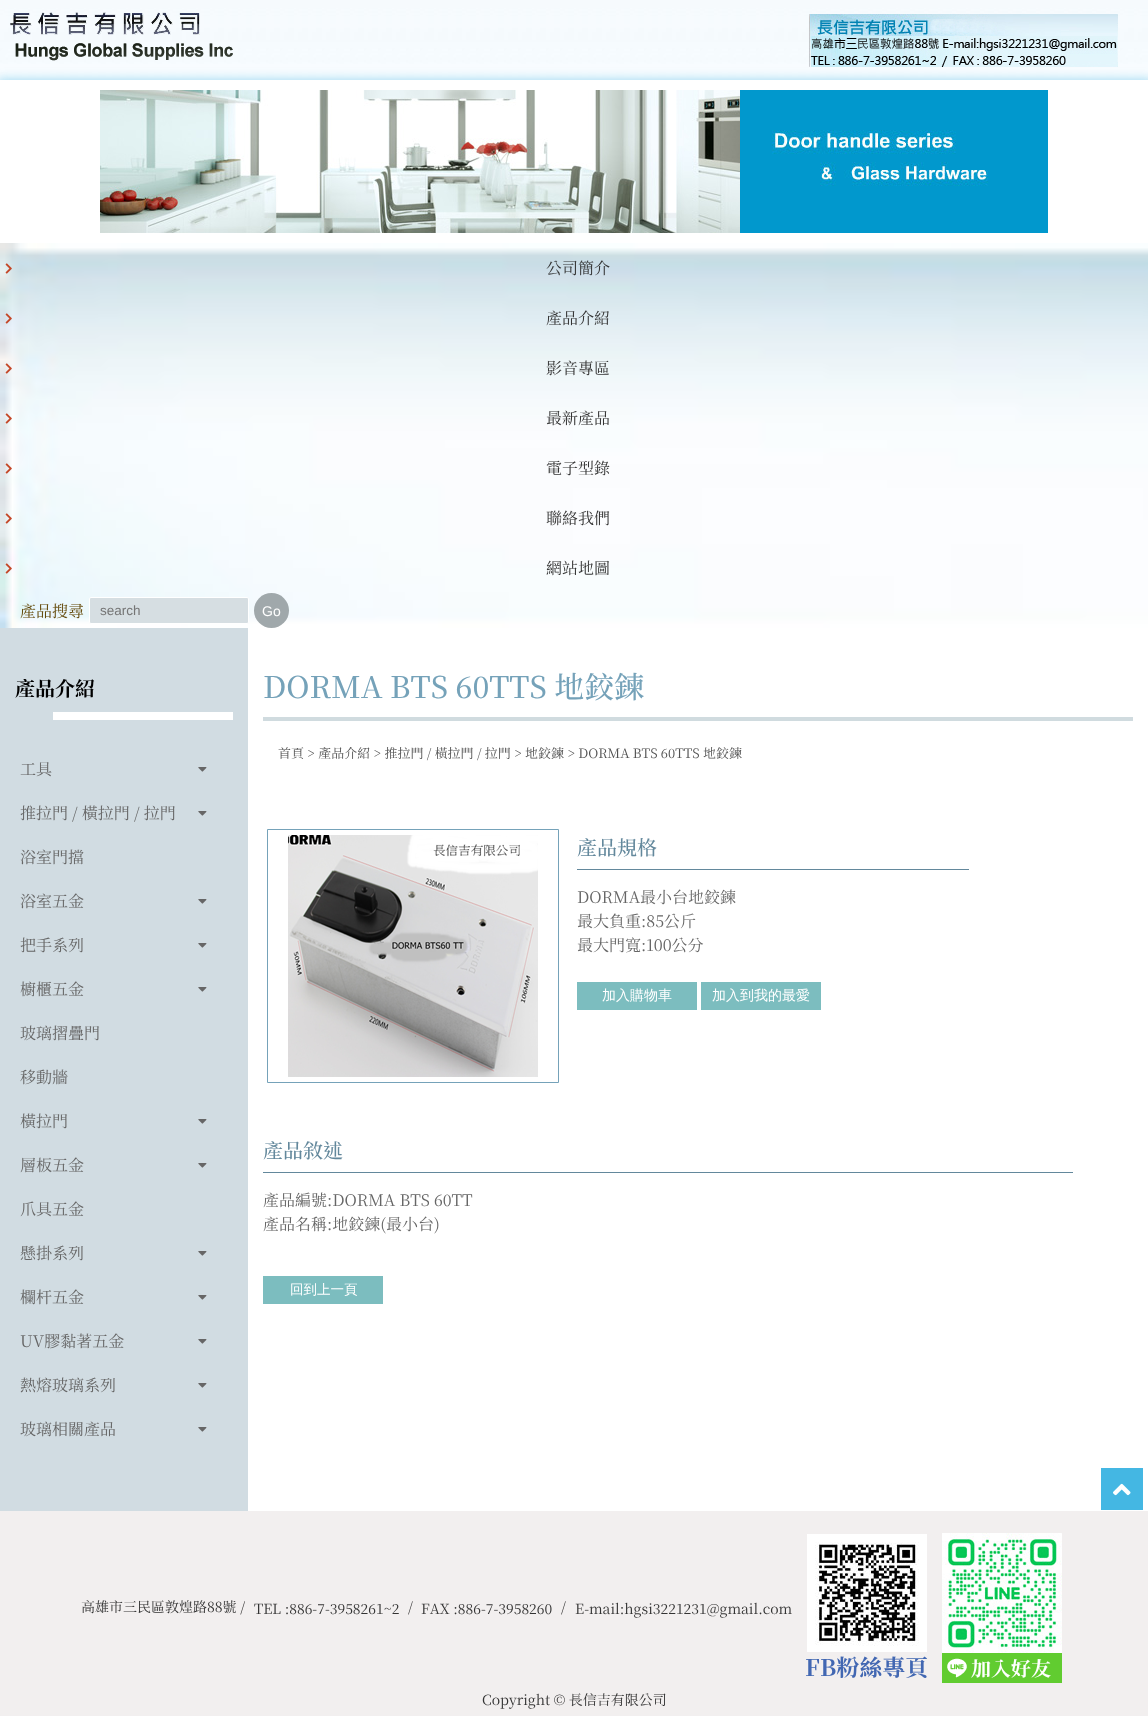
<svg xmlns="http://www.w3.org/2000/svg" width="1148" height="1732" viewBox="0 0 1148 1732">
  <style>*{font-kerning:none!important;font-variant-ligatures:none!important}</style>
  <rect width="100%" height="100%" fill="#fff"/>
  <image x="0" y="0" width="1148" height="80" href="img/1.png"/>
  <image x="10" y="12" width="223" height="49" href="img/2.png"/>
  <path d="M-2 78h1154v169H-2z" fill="#44b7e363" filter="blur(5px)"/>
  <image x="809" y="14" width="309" height="53" href="img/3.png"/>
  <path d="M0 80h1148v163H0z" fill="#fff"/>
  <image x="100" y="90" width="948" height="143" href="img/4.png"/>
  <image x="0" y="243" width="1148" height="385" href="img/5.png"/>
  <image x="5" y="263" width="7" height="11" href="img/6.png"/>
  <image x="5" y="313" width="7" height="11" href="img/7.png"/>
  <image x="5" y="363" width="7" height="11" href="img/8.png"/>
  <image x="5" y="413" width="7" height="11" href="img/9.png"/>
  <image x="5" y="463" width="7" height="11" href="img/10.png"/>
  <image x="5" y="513" width="7" height="11" href="img/11.png"/>
  <image x="5" y="563" width="7" height="11" href="img/12.png"/>
  <rect x="89.5" y="597.5" width="159" height="26" rx="1.5" fill="#d6dee2" stroke="#fff"/>
  <circle cx="271.5" cy="610.5" r="17.5" fill="#a0a8ab"/>
  <path d="M0 628h248v883H0z" fill="#d1dce2"/>
  <path d="M53 712h180v8H53z" fill="#fff"/>
  <image x="198" y="767" width="9" height="5" href="img/13.png"/>
  <image x="198" y="811" width="9" height="5" href="img/13.png"/>
  <image x="198" y="899" width="9" height="5" href="img/13.png"/>
  <image x="198" y="943" width="9" height="5" href="img/13.png"/>
  <image x="198" y="987" width="9" height="5" href="img/13.png"/>
  <image x="198" y="1119" width="9" height="5" href="img/13.png"/>
  <image x="198" y="1163" width="9" height="5" href="img/13.png"/>
  <image x="198" y="1251" width="9" height="5" href="img/13.png"/>
  <image x="198" y="1295" width="9" height="5" href="img/13.png"/>
  <image x="198" y="1339" width="9" height="5" href="img/13.png"/>
  <image x="198" y="1383" width="9" height="5" href="img/13.png"/>
  <image x="198" y="1427" width="9" height="5" href="img/13.png"/>
  <path d="M263 717h870v4H263z" fill="#d0dbdf"/>
  <path d="M267.5 829.5h291v253H267.5z" fill="none" stroke="#75a2b9"/>
  <image x="288" y="835" width="250" height="242" href="img/14.png"/>
  <path d="M577 869h392v1H577z" fill="#63889c"/>
  <path d="M577 982h120v28H577z" fill="#7cbdbf"/>
  <path d="M701 982h120v28H701z" fill="#7cbdbf"/>
  <path d="M263 1172h810v1H263z" fill="#63889c"/>
  <path d="M263 1276h120v28H263z" fill="#7cbdbf"/>
  <path d="M0 1511h1148v205H0z" fill="#f2efef"/>
  <path d="M1101 1468h42v42H1101z" fill="#44b7e3"/>
  <image x="1113" y="1483" width="18" height="13" href="img/15.png"/>
  <image x="807" y="1534" width="120" height="118" href="img/16.png"/>
  <image x="942" y="1533" width="120" height="120" href="img/17.png"/>
  <path d="M942 1653h120v30H942z" fill="#61cc30"/>
  <image x="947" y="1658" width="20" height="20" href="img/18.png"/>
  <g font-family="Noto Serif TC" font-size="16" fill="#333">
    <text x="546" y="274">公司簡介</text>
    <text x="546" y="324">產品介紹</text>
    <text x="546" y="374">影音專區</text>
    <text x="546" y="424">最新產品</text>
    <text x="546" y="474">電子型錄</text>
    <text x="546" y="524">聯絡我們</text>
    <text x="546" y="574">網站地圖</text>
  </g>
  <text x="20" y="617" font-family="Noto Serif TC" font-size="16" fill="#634808">產品搜尋</text>
  <text x="100" y="615" font-family="Liberation Sans" font-size="13.5" fill="#757575">search</text>
  <text x="262" y="616" font-family="Liberation Sans" font-size="14" fill="#fff">Go</text>
  <text x="15" y="696" font-family="Noto Serif TC" font-size="20" font-weight="bold" fill="#000">產品介紹</text>
  <g font-family="Noto Serif TC" font-size="16" fill="#666">
    <text x="20" y="775">工具</text>
    <text x="20" y="819">推拉門 / 橫拉門 / 拉門</text>
    <text x="20" y="863">浴室門擋</text>
    <text x="20" y="907">浴室五金</text>
    <text x="20" y="951">把手系列</text>
    <text x="20" y="995">櫥櫃五金</text>
    <text x="20" y="1039">玻璃摺疊門</text>
    <text x="20" y="1083">移動牆</text>
    <text x="20" y="1127">橫拉門</text>
    <text x="20" y="1171">層板五金</text>
    <text x="20" y="1215">爪具五金</text>
    <text x="20" y="1259">懸掛系列</text>
    <text x="20" y="1303">欄杆五金</text>
    <text x="20" y="1347">UV膠黏著五金</text>
    <text x="20" y="1391">熱熔玻璃系列</text>
    <text x="20" y="1435">玻璃相關產品</text>
  </g>
  <text x="263" y="698" font-family="Noto Serif TC" font-size="30" font-weight="500" fill="#75a2b9">DORMA BTS 60TTS 地鉸鍊</text>
  <text x="278" y="758" font-family="Noto Serif TC" font-size="13" fill="#505050">首頁 &gt; 產品介紹 &gt; 推拉門 / 橫拉門 / 拉門 &gt; 地鉸鍊 &gt; DORMA BTS 60TTS 地鉸鍊</text>
  <text x="577" y="855" font-family="Noto Serif TC" font-size="20" font-weight="500" fill="#63889c">產品規格</text>
  <g font-family="Noto Serif TC" font-size="16" fill="#666">
    <text x="577" y="903">DORMA最小台地鉸鍊</text>
    <text x="577" y="927">最大負重:85公斤</text>
    <text x="577" y="951">最大門寬:100公分</text>
  </g>
  <g font-family="WenQuanYi Zen Hei" font-size="14" font-weight="500" fill="#fff">
    <text x="602" y="1000">加入購物車</text>
    <text x="712" y="1000">加入到我的最愛</text>
  </g>
  <text x="263" y="1158" font-family="Noto Serif TC" font-size="20" font-weight="500" fill="#63889c">產品敘述</text>
  <g font-family="Noto Serif TC" font-size="16" fill="#666">
    <text x="263" y="1206">產品編號:DORMA BTS 60TT</text>
    <text x="263" y="1230">產品名稱:地鉸鍊(最小台)</text>
  </g>
  <text x="290" y="1294" font-family="WenQuanYi Zen Hei" font-size="13.5" font-weight="500" fill="#fff">回到上一頁</text>
  <g font-family="Noto Serif TC" font-size="14" fill="#333">
    <text x="81" y="1612">高雄市三民區敦煌路88號 /</text>
    <text x="254" y="1614">TEL :886-7-3958261~2</text>
    <text x="408" y="1612">/</text>
    <text x="421" y="1614">FAX :886-7-3958260</text>
    <text x="561" y="1612">/</text>
    <text x="575" y="1614">E-mail:hgsi3221231@gmail.com</text>
  </g>
  <text x="805" y="1676" font-family="Noto Serif TC" font-size="23" font-weight="bold" fill="#4267b2">FB粉絲專頁</text>
  <text x="971" y="1676" font-family="Noto Serif TC" font-size="20" font-weight="bold" fill="#fff">加入好友</text>
  <text x="482" y="1705" font-family="Noto Serif TC" font-size="14" fill="#333">Copyright © 長信吉有限公司</text>
</svg>
